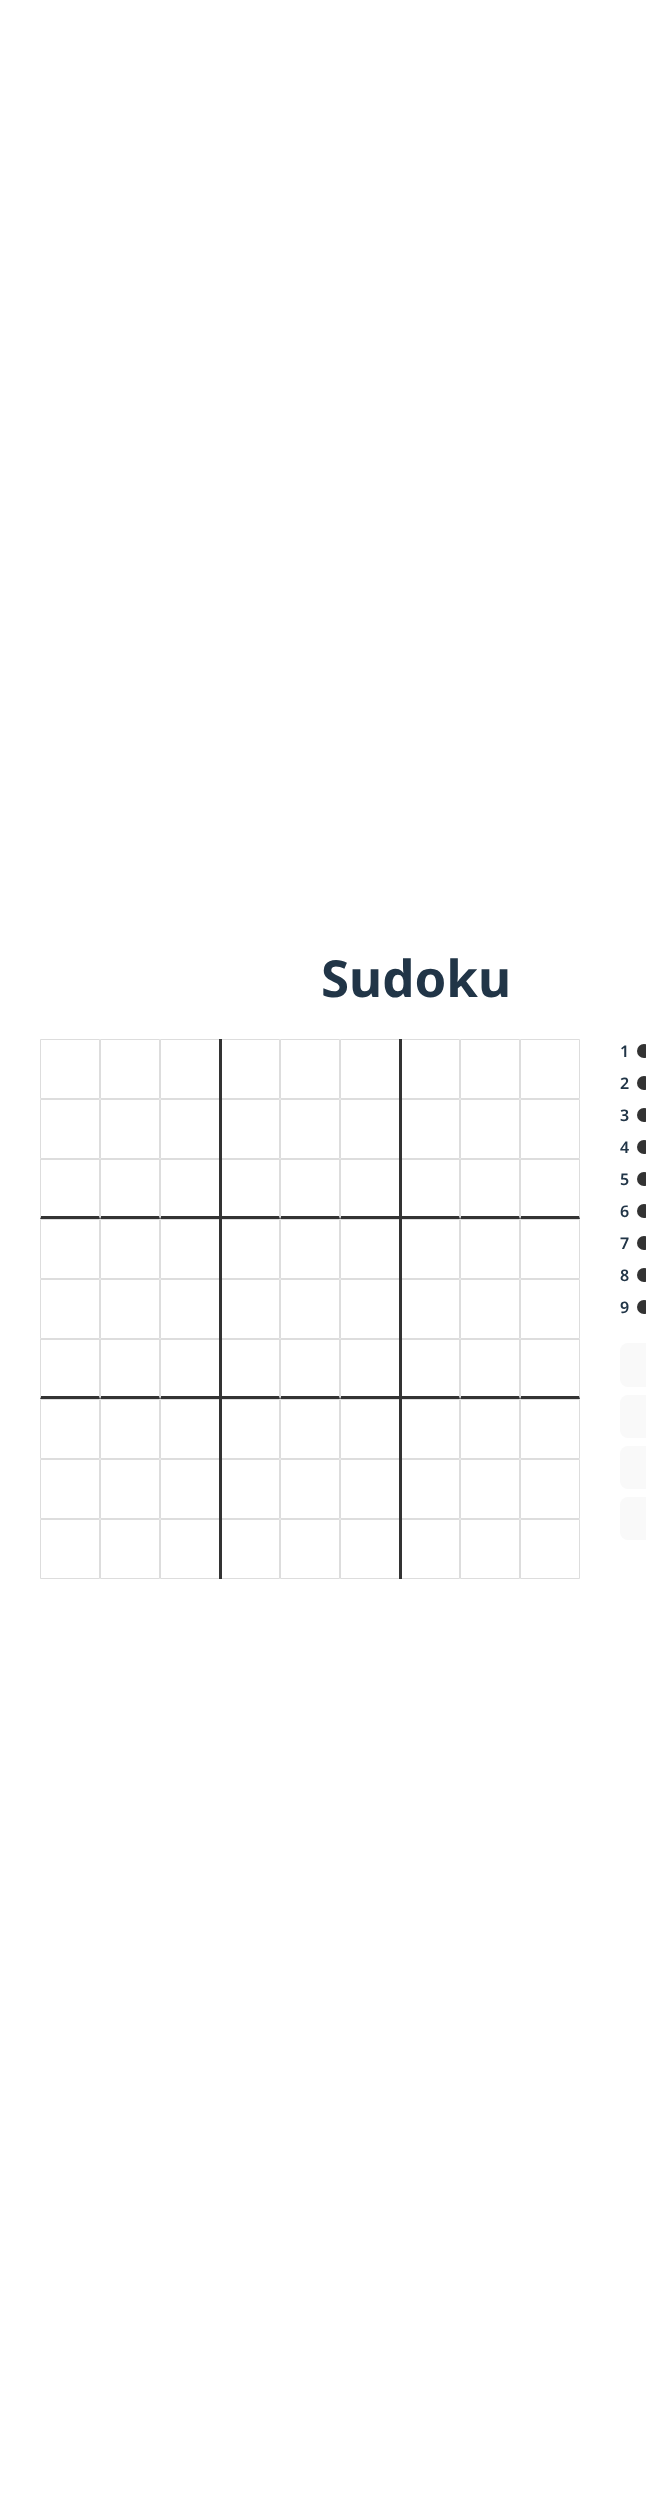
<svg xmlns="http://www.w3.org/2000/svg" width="646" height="2514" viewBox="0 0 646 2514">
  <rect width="100%" height="100%" fill="#fff"/>
  <path d="M40.5 1039.5h59v59H40.5z" fill="none" stroke="#ddd"/>
  <path d="M100.5 1039.5h59v59H100.5z" fill="none" stroke="#ddd"/>
  <path d="M160.5 1039.5h59v59H160.5z" fill="none" stroke="#ddd"/>
  <path d="M220.5 1039.5h59v59H220.5z" fill="none" stroke="#ddd"/>
  <path d="M280.5 1039.5h59v59H280.5z" fill="none" stroke="#ddd"/>
  <path d="M340.5 1039.5h59v59H340.5z" fill="none" stroke="#ddd"/>
  <path d="M400.5 1039.5h59v59H400.5z" fill="none" stroke="#ddd"/>
  <path d="M460.5 1039.5h59v59H460.5z" fill="none" stroke="#ddd"/>
  <path d="M520.5 1039.5h59v59H520.5z" fill="none" stroke="#ddd"/>
  <path d="M160.5 1099.5h59v59H160.5z" fill="none" stroke="#ddd"/>
  <path d="M220.5 1099.5h59v59H220.5z" fill="none" stroke="#ddd"/>
  <path d="M40 1159h540v1H40z" fill="#ddd"/>
  <path d="M220 1219H160L161 1216H219Z" fill="#333"/>
  <path d="M280 1159V1219L279 1216V1160Z" fill="#ddd"/>
  <path d="M280 1219H220L221 1216H279Z" fill="#333"/>
  <path d="M160.5 1219.5h59v59H160.5z" fill="none" stroke="#ddd"/>
  <path d="M220.5 1219.5h59v59H220.5z" fill="none" stroke="#ddd"/>
  <path d="M160.5 1279.5h59v59H160.5z" fill="none" stroke="#ddd"/>
  <path d="M220.5 1279.5h59v59H220.5z" fill="none" stroke="#ddd"/>
  <path d="M40 1339h540v1H40z" fill="#ddd"/>
  <path d="M220 1399H160L161 1396H219Z" fill="#333"/>
  <path d="M280 1339V1399L279 1396V1340Z" fill="#ddd"/>
  <path d="M280 1399H220L221 1396H279Z" fill="#333"/>
  <path d="M160.5 1399.5h59v59H160.5z" fill="none" stroke="#ddd"/>
  <path d="M220.5 1399.5h59v59H220.5z" fill="none" stroke="#ddd"/>
  <path d="M160.5 1459.5h59v59H160.5z" fill="none" stroke="#ddd"/>
  <path d="M220.5 1459.5h59v59H220.5z" fill="none" stroke="#ddd"/>
  <path d="M160.5 1519.5h59v59H160.5z" fill="none" stroke="#ddd"/>
  <path d="M220.5 1519.5h59v59H220.5z" fill="none" stroke="#ddd"/>
  <path d="M219 1039h3v540H219z" fill="#333"/>
  <path d="M340.5 1099.5h59v59H340.5z" fill="none" stroke="#ddd"/>
  <path d="M400.5 1099.5h59v59H400.5z" fill="none" stroke="#ddd"/>
  <path d="M400 1219H340L341 1216H399Z" fill="#333"/>
  <path d="M460 1159V1219L459 1216V1160Z" fill="#ddd"/>
  <path d="M460 1219H400L401 1216H459Z" fill="#333"/>
  <path d="M340.5 1219.5h59v59H340.5z" fill="none" stroke="#ddd"/>
  <path d="M400.5 1219.5h59v59H400.5z" fill="none" stroke="#ddd"/>
  <path d="M340.5 1279.5h59v59H340.5z" fill="none" stroke="#ddd"/>
  <path d="M400.5 1279.5h59v59H400.5z" fill="none" stroke="#ddd"/>
  <path d="M400 1399H340L341 1396H399Z" fill="#333"/>
  <path d="M460 1339V1399L459 1396V1340Z" fill="#ddd"/>
  <path d="M460 1399H400L401 1396H459Z" fill="#333"/>
  <path d="M340.5 1399.5h59v59H340.5z" fill="none" stroke="#ddd"/>
  <path d="M400.5 1399.5h59v59H400.5z" fill="none" stroke="#ddd"/>
  <path d="M340.5 1459.5h59v59H340.5z" fill="none" stroke="#ddd"/>
  <path d="M400.5 1459.5h59v59H400.5z" fill="none" stroke="#ddd"/>
  <path d="M340.5 1519.5h59v59H340.5z" fill="none" stroke="#ddd"/>
  <path d="M400.5 1519.5h59v59H400.5z" fill="none" stroke="#ddd"/>
  <path d="M399 1039h3v540H399z" fill="#333"/>
  <path d="M40.5 1099.5h59v59H40.5z" fill="none" stroke="#ddd"/>
  <path d="M100.5 1099.5h59v59H100.5z" fill="none" stroke="#ddd"/>
  <path d="M280.5 1099.5h59v59H280.5z" fill="none" stroke="#ddd"/>
  <path d="M460.5 1099.5h59v59H460.5z" fill="none" stroke="#ddd"/>
  <path d="M520.5 1099.5h59v59H520.5z" fill="none" stroke="#ddd"/>
  <path d="M100 1159V1219L99 1216V1160Z" fill="#ddd"/>
  <path d="M100 1219H40L41 1216H99Z" fill="#333"/>
  <path d="M40 1219V1159L41 1160V1216Z" fill="#ddd"/>
  <path d="M160 1159V1219L159 1216V1160Z" fill="#ddd"/>
  <path d="M160 1219H100L101 1216H159Z" fill="#333"/>
  <path d="M100 1219V1159L101 1160V1216Z" fill="#ddd"/>
  <path d="M160 1219V1159L161 1160V1216Z" fill="#ddd"/>
  <path d="M340 1159V1219L339 1216V1160Z" fill="#ddd"/>
  <path d="M340 1219H280L281 1216H339Z" fill="#333"/>
  <path d="M280 1219V1159L281 1160V1216Z" fill="#ddd"/>
  <path d="M340 1219V1159L341 1160V1216Z" fill="#ddd"/>
  <path d="M520 1159V1219L519 1216V1160Z" fill="#ddd"/>
  <path d="M520 1219H460L461 1216H519Z" fill="#333"/>
  <path d="M460 1219V1159L461 1160V1216Z" fill="#ddd"/>
  <path d="M580 1159V1219L579 1216V1160Z" fill="#ddd"/>
  <path d="M580 1219H520L521 1216H579Z" fill="#333"/>
  <path d="M520 1219V1159L521 1160V1216Z" fill="#ddd"/>
  <path d="M40.5 1219.5h59v59H40.5z" fill="none" stroke="#ddd"/>
  <path d="M100.5 1219.5h59v59H100.5z" fill="none" stroke="#ddd"/>
  <path d="M280.5 1219.5h59v59H280.5z" fill="none" stroke="#ddd"/>
  <path d="M460.5 1219.5h59v59H460.5z" fill="none" stroke="#ddd"/>
  <path d="M520.5 1219.5h59v59H520.5z" fill="none" stroke="#ddd"/>
  <path d="M40.5 1279.5h59v59H40.5z" fill="none" stroke="#ddd"/>
  <path d="M100.5 1279.5h59v59H100.5z" fill="none" stroke="#ddd"/>
  <path d="M280.5 1279.5h59v59H280.5z" fill="none" stroke="#ddd"/>
  <path d="M460.5 1279.5h59v59H460.5z" fill="none" stroke="#ddd"/>
  <path d="M520.5 1279.5h59v59H520.5z" fill="none" stroke="#ddd"/>
  <path d="M100 1339V1399L99 1396V1340Z" fill="#ddd"/>
  <path d="M100 1399H40L41 1396H99Z" fill="#333"/>
  <path d="M40 1399V1339L41 1340V1396Z" fill="#ddd"/>
  <path d="M160 1339V1399L159 1396V1340Z" fill="#ddd"/>
  <path d="M160 1399H100L101 1396H159Z" fill="#333"/>
  <path d="M100 1399V1339L101 1340V1396Z" fill="#ddd"/>
  <path d="M160 1399V1339L161 1340V1396Z" fill="#ddd"/>
  <path d="M340 1339V1399L339 1396V1340Z" fill="#ddd"/>
  <path d="M340 1399H280L281 1396H339Z" fill="#333"/>
  <path d="M280 1399V1339L281 1340V1396Z" fill="#ddd"/>
  <path d="M340 1399V1339L341 1340V1396Z" fill="#ddd"/>
  <path d="M520 1339V1399L519 1396V1340Z" fill="#ddd"/>
  <path d="M520 1399H460L461 1396H519Z" fill="#333"/>
  <path d="M460 1399V1339L461 1340V1396Z" fill="#ddd"/>
  <path d="M580 1339V1399L579 1396V1340Z" fill="#ddd"/>
  <path d="M580 1399H520L521 1396H579Z" fill="#333"/>
  <path d="M520 1399V1339L521 1340V1396Z" fill="#ddd"/>
  <path d="M40.5 1399.5h59v59H40.5z" fill="none" stroke="#ddd"/>
  <path d="M100.5 1399.5h59v59H100.5z" fill="none" stroke="#ddd"/>
  <path d="M280.5 1399.5h59v59H280.5z" fill="none" stroke="#ddd"/>
  <path d="M460.5 1399.5h59v59H460.5z" fill="none" stroke="#ddd"/>
  <path d="M520.5 1399.5h59v59H520.5z" fill="none" stroke="#ddd"/>
  <path d="M40.5 1459.5h59v59H40.5z" fill="none" stroke="#ddd"/>
  <path d="M100.5 1459.5h59v59H100.5z" fill="none" stroke="#ddd"/>
  <path d="M280.5 1459.5h59v59H280.5z" fill="none" stroke="#ddd"/>
  <path d="M460.5 1459.5h59v59H460.5z" fill="none" stroke="#ddd"/>
  <path d="M520.5 1459.5h59v59H520.5z" fill="none" stroke="#ddd"/>
  <path d="M40.5 1519.5h59v59H40.5z" fill="none" stroke="#ddd"/>
  <path d="M100.5 1519.5h59v59H100.5z" fill="none" stroke="#ddd"/>
  <path d="M280.5 1519.5h59v59H280.5z" fill="none" stroke="#ddd"/>
  <path d="M460.5 1519.5h59v59H460.5z" fill="none" stroke="#ddd"/>
  <path d="M520.5 1519.5h59v59H520.5z" fill="none" stroke="#ddd"/>
  <circle cx="644" cy="1051" r="7" fill="#333"/>
  <circle cx="644" cy="1083" r="7" fill="#333"/>
  <circle cx="644" cy="1115" r="7" fill="#333"/>
  <circle cx="644" cy="1147" r="7" fill="#333"/>
  <circle cx="644" cy="1179" r="7" fill="#333"/>
  <circle cx="644" cy="1211" r="7" fill="#333"/>
  <circle cx="644" cy="1243" r="7" fill="#333"/>
  <circle cx="644" cy="1275" r="7" fill="#333"/>
  <circle cx="644" cy="1307" r="7" fill="#333"/>
  <rect x="620" y="1343" width="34" height="44" rx="8" fill="#f9f9f9"/>
  <rect x="620" y="1395" width="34" height="43" rx="8" fill="#f9f9f9"/>
  <rect x="620" y="1446" width="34" height="43" rx="8" fill="#f9f9f9"/>
  <rect x="620" y="1497" width="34" height="43" rx="8" fill="#f9f9f9"/>
  <text x="321" y="997" font-family="Noto Sans" font-size="51" font-weight="bold" fill="#213547">Sudoku</text>
  <g font-family="Noto Sans" font-size="16" font-weight="600" fill="#213547">
    <text x="620" y="1057">1</text>
    <text x="620" y="1089">2</text>
    <text x="620" y="1121">3</text>
    <text x="620" y="1153">4</text>
    <text x="620" y="1185">5</text>
    <text x="620" y="1217">6</text>
    <text x="620" y="1249">7</text>
    <text x="620" y="1281">8</text>
    <text x="620" y="1313">9</text>
  </g>
</svg>
